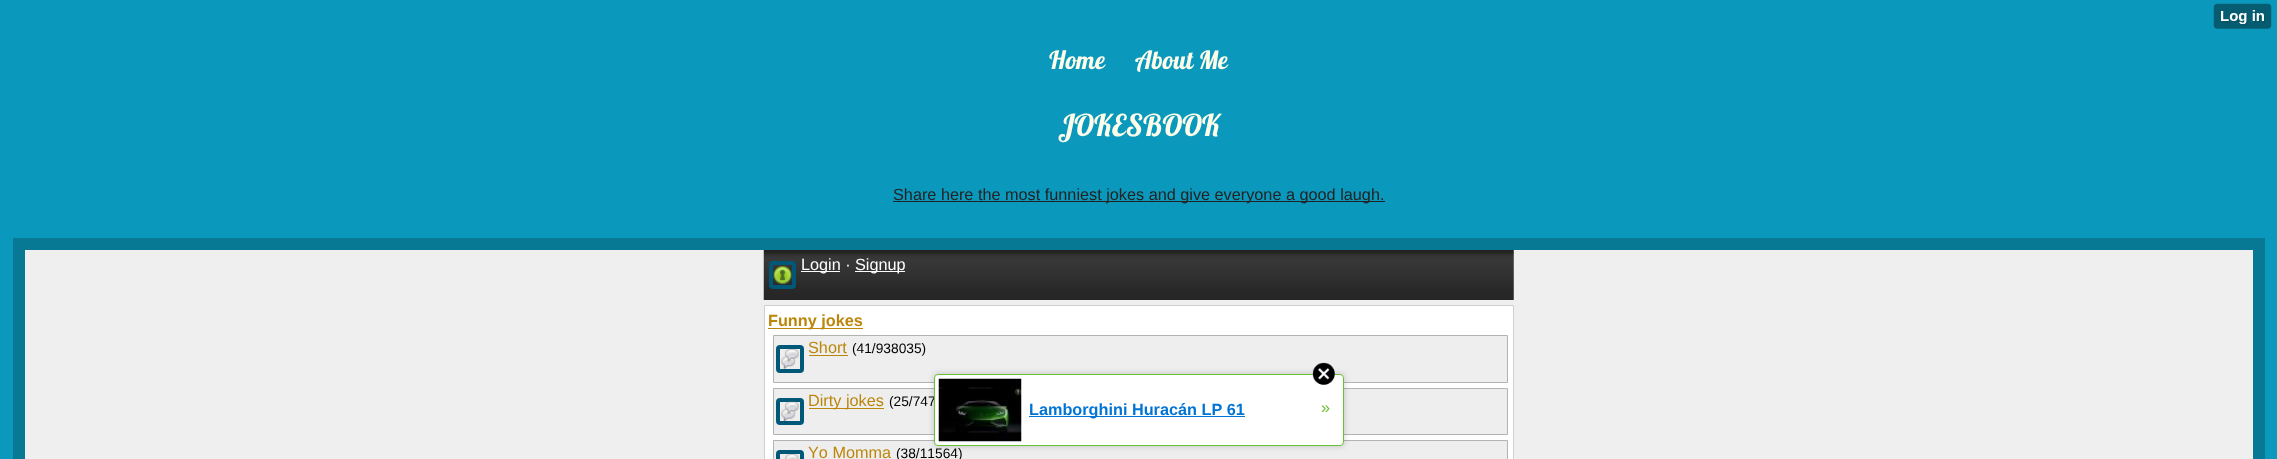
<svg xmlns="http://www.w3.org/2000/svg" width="2277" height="459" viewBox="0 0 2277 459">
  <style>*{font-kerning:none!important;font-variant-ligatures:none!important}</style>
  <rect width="100%" height="100%" fill="#0a99bc"/>
  <image x="2213" y="3" width="59" height="26" href="img/1.png"/>
  <path d="M893 201h492v1H893z" fill="#222"/>
  <path d="M13 238h2252v221H13z" fill="#087995"/>
  <path d="M25 250h2228v209H25z" fill="#efefef"/>
  <image x="763" y="250" width="751" height="50" href="img/2.png"/>
  <rect x="771" y="263" width="23" height="24" rx="2" fill="none" stroke="#005878" stroke-width="4"/>
  <path d="M801 271h39v1H801z" fill="#fff"/>
  <path d="M855 271h50v1H855z" fill="#fff"/>
  <image x="773" y="266" width="19" height="18" href="img/3.png"/>
  <path d="M764.5 305.5h749v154H764.5z" fill="#fff" stroke="#cfcfcf"/>
  <path d="M768 328h95v1H768z" fill="#bc860a"/>
  <path d="M773.5 335.5h734v47H773.5z" fill="#eee" stroke="#b3b3b3"/>
  <rect x="778" y="347" width="24" height="24" rx="2" fill="none" stroke="#005878" stroke-width="4"/>
  <path d="M809 355h39v1H809z" fill="#bc860a"/>
  <image x="781" y="349" width="18" height="20" href="img/4.png"/>
  <path d="M773.5 388.5h734v46H773.5z" fill="#eee" stroke="#b3b3b3"/>
  <rect x="778" y="400" width="24" height="23" rx="2" fill="none" stroke="#005878" stroke-width="4"/>
  <path d="M809 408h75v1H809z" fill="#bc860a"/>
  <image x="781" y="401" width="18" height="20" href="img/5.png"/>
  <path d="M773.5 440.5h734v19H773.5z" fill="#eee" stroke="#b3b3b3"/>
  <rect x="778" y="452" width="24" height="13" rx="2" fill="none" stroke="#005878" stroke-width="4"/>
  <image x="785" y="454" width="14" height="5" href="img/6.png"/>
  <rect x="934" y="374" width="410" height="72" rx="4" fill="#00000033" filter="blur(3px)"/>
  <g font-family="Lobster" font-size="25" fill="#fffeeb">
    <text x="1049" y="69">Home</text>
    <text x="1135" y="69">About Me</text>
  </g>
  <text x="1058" y="136" font-family="Lobster" font-size="30" fill="#fffeeb">JOKESBOOK</text>
  <text x="893" y="200" font-family="Liberation Sans" font-size="16.25" fill="#222">Share here the most funniest jokes and give everyone a good laugh.</text>
  <g font-family="Liberation Sans" font-size="16.25" fill="#fff">
    <text x="801" y="270">Login ·</text>
    <text x="855" y="270">Signup</text>
  </g>
  <text x="768" y="326" font-family="Liberation Sans" font-size="16.25" font-weight="bold" fill="#bc860a">Funny jokes</text>
  <text x="808" y="353" font-family="Liberation Sans" font-size="16.25" fill="#bc860a">Short</text>
  <text x="852" y="353" font-family="Liberation Sans" font-size="13.75" fill="#000">(41/938035)</text>
  <text x="808" y="406" font-family="Liberation Sans" font-size="16.25" fill="#bc860a">Dirty jokes</text>
  <text x="889" y="406" font-family="Liberation Sans" font-size="13.75" fill="#000">(25/747</text>
  <text x="808" y="458" font-family="Liberation Sans" font-size="16.25" fill="#bc860a">Yo Momma</text>
  <text x="896" y="458" font-family="Liberation Sans" font-size="13.75" fill="#000">(38/11564)</text>
  <rect x="934.5" y="374.5" width="409" height="71" rx="3.5" fill="#fff" stroke="#6bc135"/>
  <image x="1312" y="362" width="23" height="23" href="img/7.png"/>
  <image x="938" y="378" width="84" height="64" href="img/8.png"/>
  <path d="M1029 416h216v1H1029z" fill="#0274d4"/>
  <text x="1029" y="415" font-family="Liberation Sans" font-size="16.25" font-weight="bold" fill="#0274d4">Lamborghini Huracán LP 61</text>
  <text x="1321" y="413" font-family="Liberation Sans" font-size="16.25" fill="#6bc135">»</text>
</svg>
